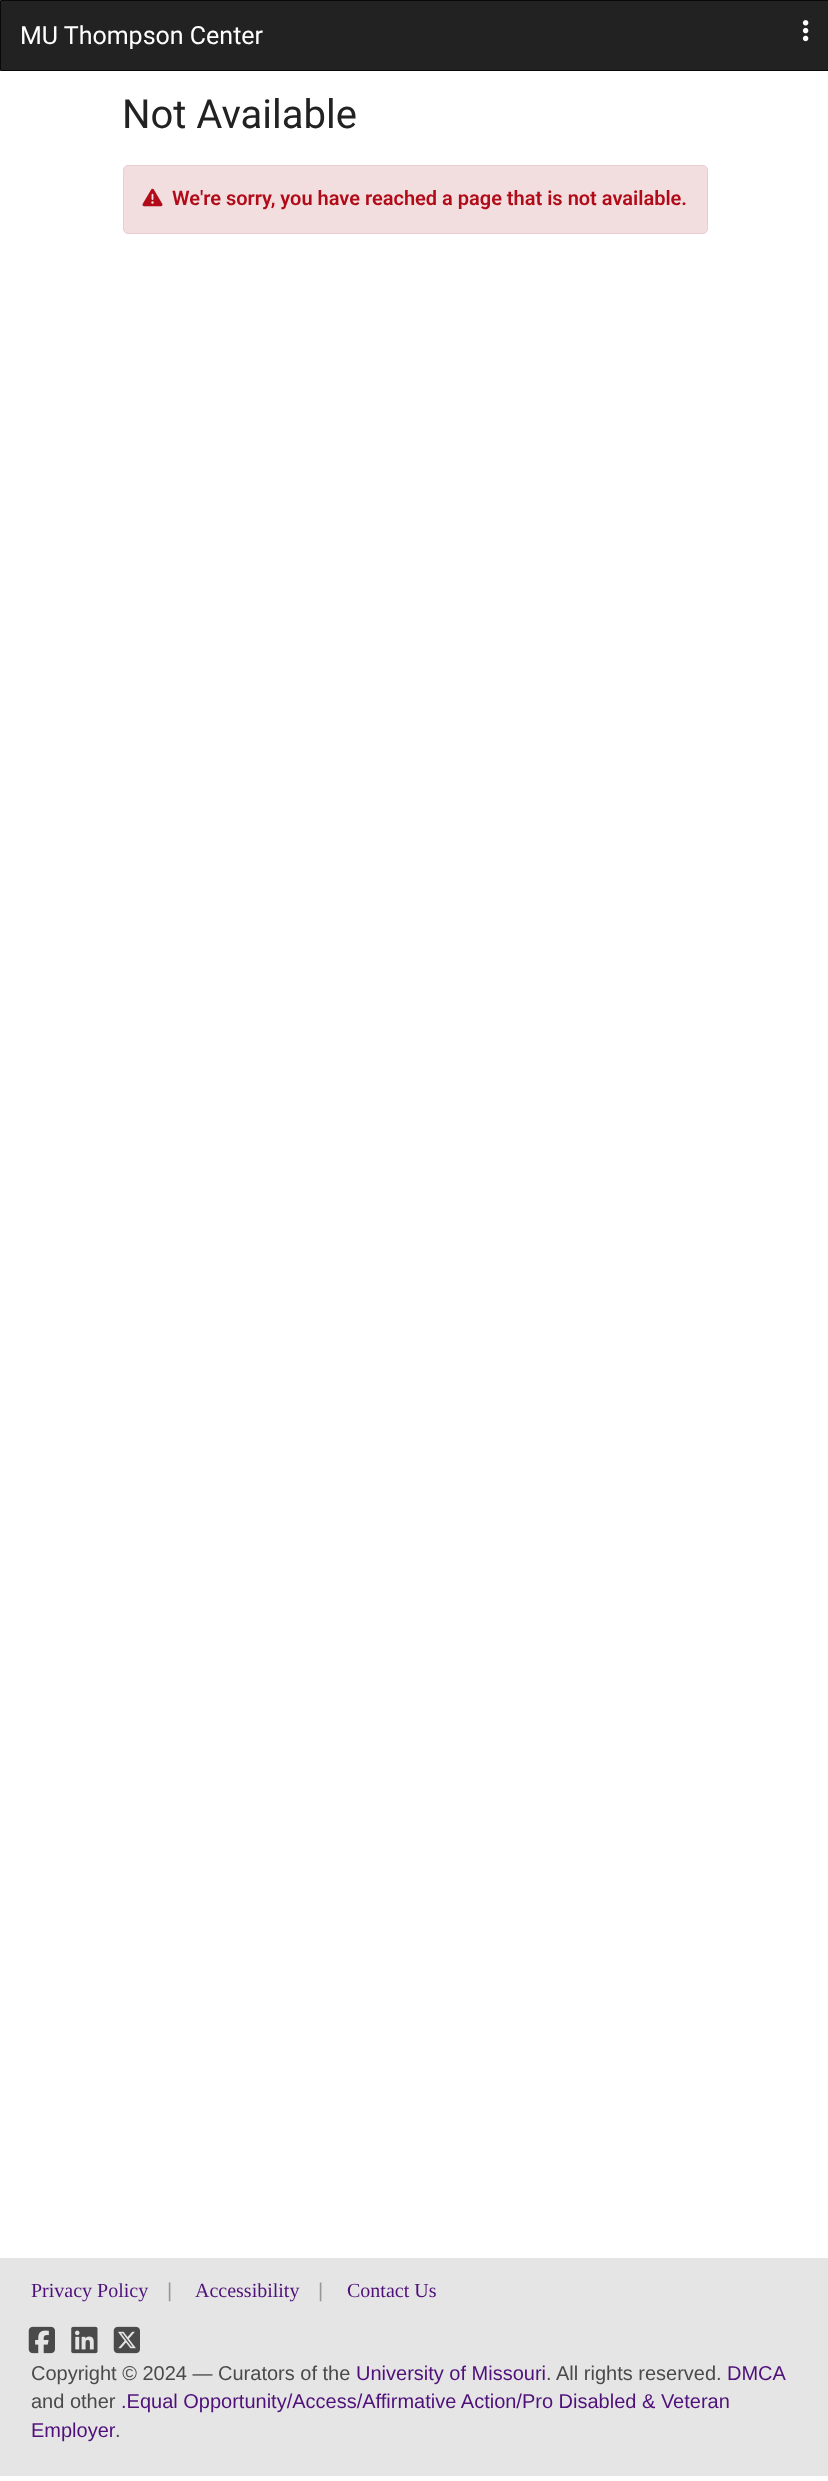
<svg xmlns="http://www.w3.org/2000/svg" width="828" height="2481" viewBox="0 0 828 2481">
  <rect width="100%" height="100%" fill="#fff"/>
  <path d="M0.5 0.5h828v70H0.5z" fill="#222" stroke="#090909"/>
  <image x="802" y="20" width="7" height="22" href="img/1.png"/>
  <rect x="123.5" y="165.5" width="584" height="68" rx="4.5" fill="#f2dede" stroke="#ebccd1"/>
  <image x="142" y="188" width="21" height="19" href="img/2.png"/>
  <path d="M0 2258h828v218H0z" fill="#e5e5e5"/>
  <image x="28" y="2326" width="27" height="28" href="img/3.png"/>
  <image x="71" y="2326" width="27" height="28" href="img/4.png"/>
  <image x="113" y="2326" width="27" height="28" href="img/5.png"/>
  <text x="20" y="44" font-family="Roboto" font-size="25" fill="#fff">MU Thompson Center</text>
  <text x="122" y="128" font-family="Roboto" font-size="40" fill="#222">Not Available</text>
  <text x="172" y="205" font-family="Roboto" font-size="20" font-weight="600" fill="#b10b19">We're sorry, you have reached a page that is not available.</text>
  <text x="31" y="2297" font-family="Liberation Serif" font-size="20" fill="#4f107a">Privacy Policy</text>
  <text x="167" y="2297" font-family="Liberation Sans" font-size="20" fill="#989898">|</text>
  <text x="195" y="2297" font-family="Liberation Serif" font-size="20" fill="#4f107a">Accessibility</text>
  <text x="318" y="2297" font-family="Liberation Sans" font-size="20" fill="#989898">|</text>
  <text x="347" y="2297" font-family="Liberation Serif" font-size="20" fill="#4f107a">Contact Us</text>
  <text x="31" y="2380" font-family="Liberation Sans" font-size="20" fill="#4a4a4a">Copyright © 2024 — Curators of the</text>
  <text x="356" y="2380" font-family="Liberation Sans" font-size="20" fill="#4f107a">University of Missouri</text>
  <text x="546" y="2380" font-family="Liberation Sans" font-size="20" fill="#4a4a4a">. All rights reserved.</text>
  <text x="727" y="2380" font-family="Liberation Sans" font-size="20" fill="#4f107a">DMCA</text>
  <text x="31" y="2408" font-family="Liberation Sans" font-size="20" fill="#4a4a4a">and other</text>
  <g font-family="Liberation Sans" font-size="20" fill="#4f107a">
    <text x="121" y="2408">.Equal Opportunity/Access/Affirmative Action/Pro Disabled &amp; Veteran</text>
    <text x="31" y="2437">Employer</text>
  </g>
  <text x="115" y="2437" font-family="Liberation Sans" font-size="20" fill="#4a4a4a">.</text>
</svg>
